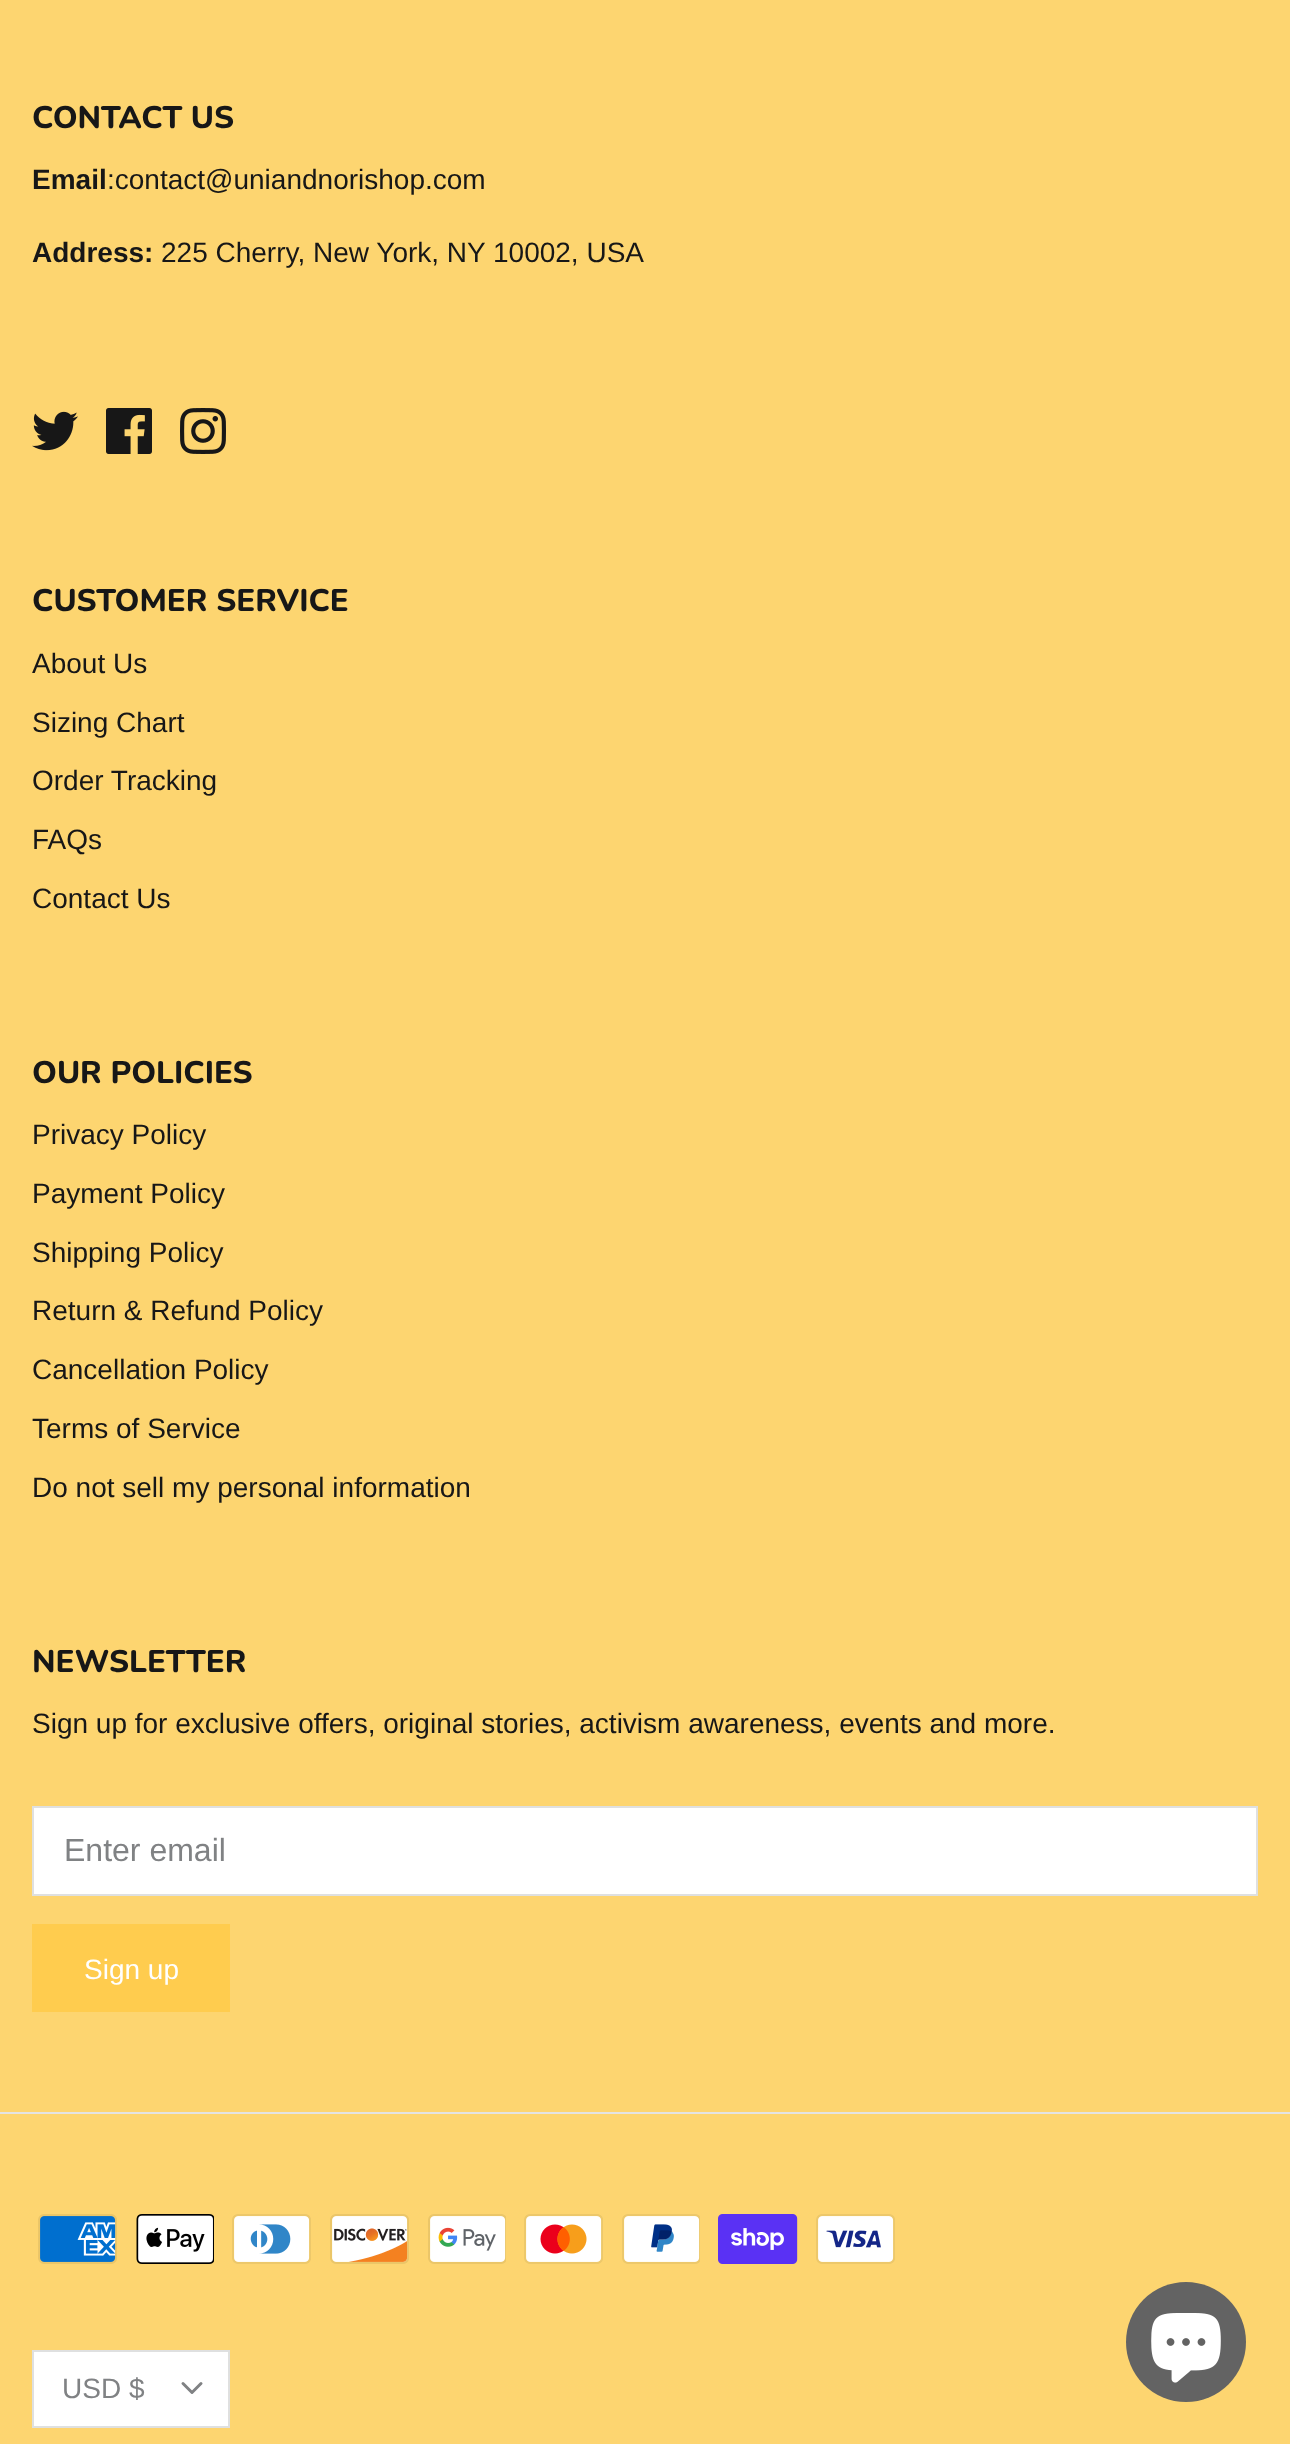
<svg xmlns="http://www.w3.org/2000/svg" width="1290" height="2444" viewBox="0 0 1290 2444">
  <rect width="100%" height="100%" fill="#fdd570"/>
  <image x="32" y="411" width="46" height="40" href="img/1.png"/>
  <image x="106" y="408" width="46" height="46" href="img/2.png"/>
  <image x="180" y="408" width="46" height="46" href="img/3.png"/>
  <path d="M33 1807h1224v88H33z" fill="#fff" stroke="#dfe0e0" stroke-width="2"/>
  <path d="M32 1924h198v88H32z" fill="#ffcc4e"/>
  <path d="M0 2112h1290v2H0z" fill="#e4e4e4"/>
  <image x="38" y="2214" width="79" height="50" href="img/4.png"/>
  <image x="136" y="2214" width="78" height="50" href="img/5.png"/>
  <image x="232" y="2214" width="79" height="50" href="img/6.png"/>
  <image x="330" y="2214" width="79" height="50" href="img/7.png"/>
  <image x="428" y="2214" width="78" height="50" href="img/8.png"/>
  <image x="524" y="2214" width="79" height="50" href="img/9.png"/>
  <image x="622" y="2214" width="78" height="50" href="img/10.png"/>
  <image x="718" y="2214" width="80" height="50" href="img/11.png"/>
  <image x="816" y="2214" width="79" height="50" href="img/12.png"/>
  <path d="M33 2351h196v76H33z" fill="#fff" stroke="#dfe0e0" stroke-width="2"/>
  <path d="M183 2383.5L192 2392.5L201 2383.5" fill="none" stroke="#808284" stroke-width="3" stroke-linecap="round" stroke-linejoin="round"/>
  <circle cx="1186" cy="2342" r="60" fill="#636363"/>
  <image x="1151" y="2313" width="70" height="70" href="img/13.png"/>
  <text x="32" y="128" font-family="Nunito" font-size="31.25" font-weight="800" fill="#171717">CONTACT US</text>
  <text x="32" y="189" font-family="Arimo" font-size="28" font-weight="bold" fill="#171717">Email</text>
  <text x="107" y="189" font-family="Arimo" font-size="28" fill="#171717">:contact@uniandnorishop.com</text>
  <text x="32" y="262" font-family="Arimo" font-size="28" font-weight="bold" fill="#171717">Address:</text>
  <text x="161" y="262" font-family="Arimo" font-size="28" fill="#171717">225 Cherry, New York, NY 10002, USA</text>
  <text x="32" y="611" font-family="Nunito" font-size="31.25" font-weight="800" fill="#171717">CUSTOMER SERVICE</text>
  <g font-family="Arimo" font-size="28" fill="#171717">
    <text x="32" y="673">About Us</text>
    <text x="32" y="732">Sizing Chart</text>
    <text x="32" y="790">Order Tracking</text>
    <text x="32" y="849">FAQs</text>
    <text x="32" y="908">Contact Us</text>
  </g>
  <text x="32" y="1083" font-family="Nunito" font-size="31.25" font-weight="800" fill="#171717">OUR POLICIES</text>
  <g font-family="Arimo" font-size="28" fill="#171717">
    <text x="32" y="1144">Privacy Policy</text>
    <text x="32" y="1203">Payment Policy</text>
    <text x="32" y="1262">Shipping Policy</text>
    <text x="32" y="1320">Return &amp; Refund Policy</text>
    <text x="32" y="1379">Cancellation Policy</text>
    <text x="32" y="1438">Terms of Service</text>
    <text x="32" y="1497">Do not sell my personal information</text>
  </g>
  <text x="32" y="1672" font-family="Nunito" font-size="31.25" font-weight="800" fill="#171717">NEWSLETTER</text>
  <text x="32" y="1733" font-family="Arimo" font-size="28" fill="#171717">Sign up for exclusive offers, original stories, activism awareness, events and more.</text>
  <text x="64" y="1861" font-family="Arimo" font-size="32" fill="#808284">Enter email</text>
  <text x="84" y="1979" font-family="Arimo" font-size="28" fill="#fff">Sign up</text>
  <text x="62" y="2398" font-family="Arimo" font-size="28" fill="#808284">USD $</text>
</svg>
